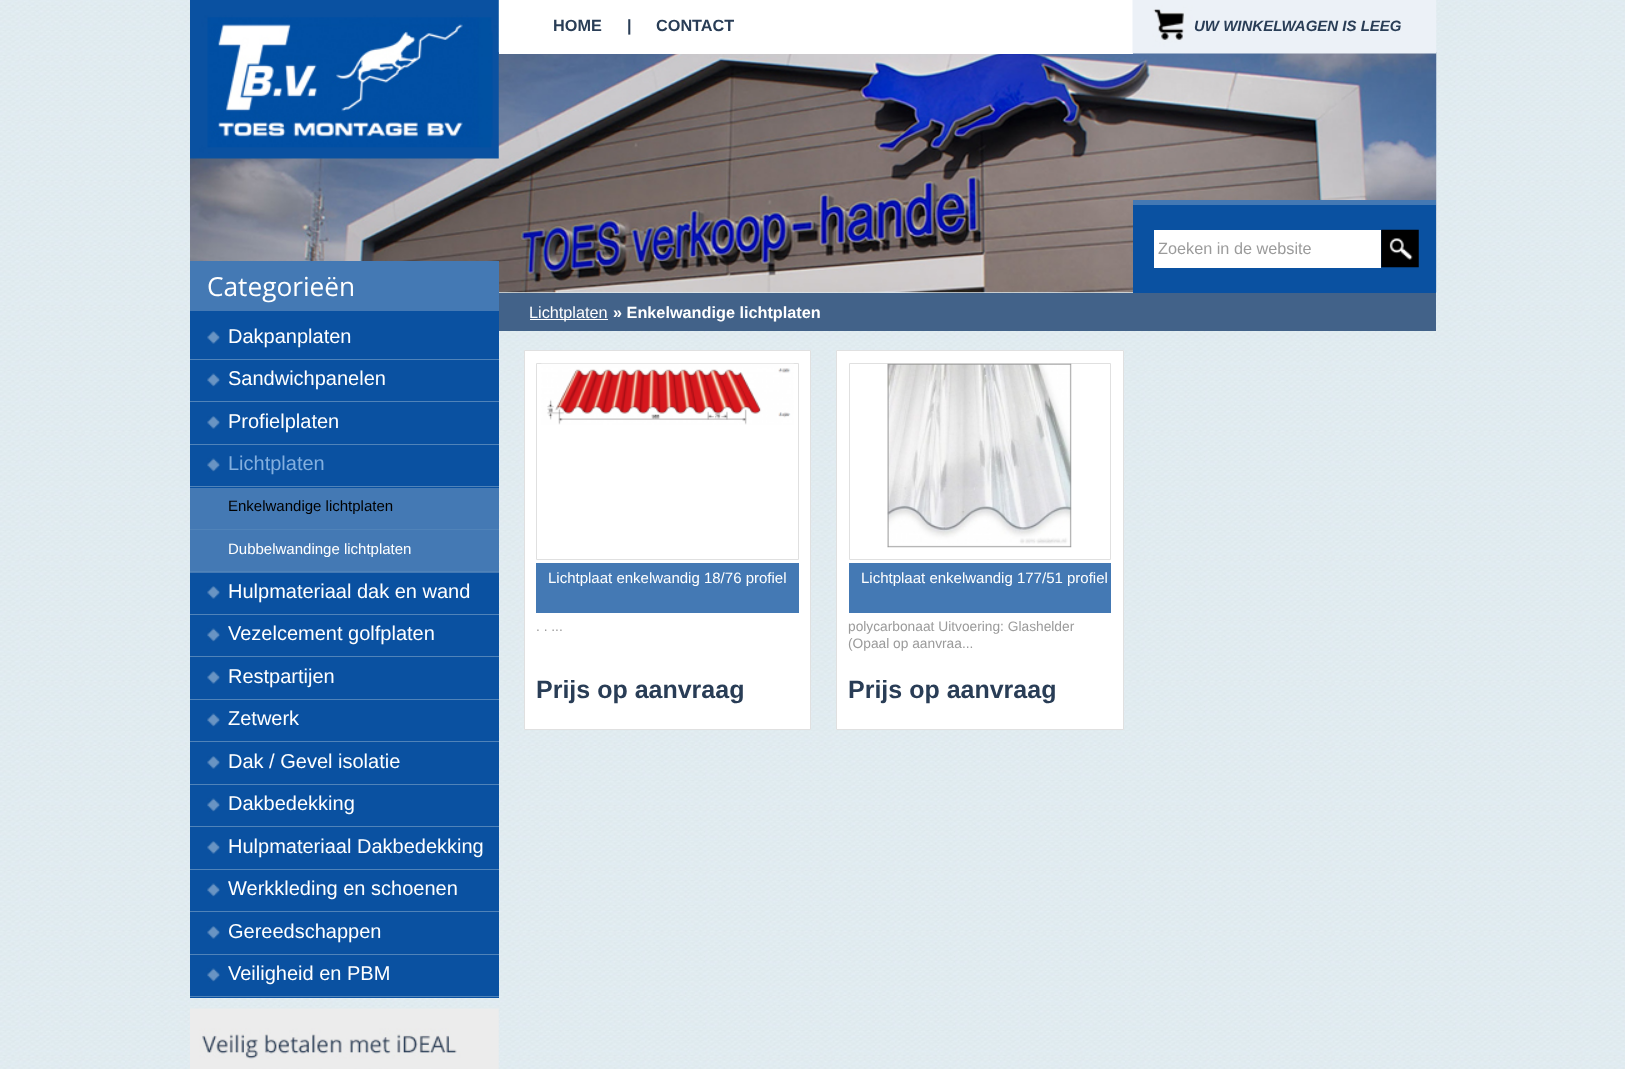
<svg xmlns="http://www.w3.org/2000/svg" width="1625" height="1069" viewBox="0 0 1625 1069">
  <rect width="100%" height="100%" fill="#fff"/>
  <image x="0" y="0" width="1625" height="1069" href="img/1.png"/>
  <image x="190" y="52" width="1247" height="241" href="img/2.png"/>
  <image x="190" y="0" width="309" height="159" href="img/3.png"/>
  <path d="M499 0h634v54H499z" fill="#fff"/>
  <image x="1132" y="0" width="305" height="54" href="img/4.png"/>
  <path d="M1133 205h303v88H1133z" fill="#0a51a1"/>
  <path d="M1133 200h303v5H1133z" fill="#4479b4"/>
  <path d="M1154 230h227v38H1154z" fill="#fff"/>
  <image x="1381" y="229" width="38" height="39" href="img/5.png"/>
  <path d="M190 261h309v50H190z" fill="#4479b4"/>
  <path d="M190 311h309v687H190z" fill="#0a51a1"/>
  <image x="207" y="331" width="13" height="13" href="img/6.png"/>
  <path d="M190 359h309v1H190z" fill="#5083b9"/>
  <image x="207" y="373" width="13" height="14" href="img/7.png"/>
  <path d="M190 401h309v1H190z" fill="#5083b9"/>
  <image x="207" y="416" width="13" height="13" href="img/6.png"/>
  <path d="M190 444h309v1H190z" fill="#5083b9"/>
  <image x="207" y="458" width="13" height="14" href="img/7.png"/>
  <path d="M190 486h309v1H190z" fill="#5083b9"/>
  <path d="M190 488h309v41H190z" fill="#4479b4"/>
  <path d="M190 529h309v1H190z" fill="#5083b9"/>
  <path d="M190 530h309v43H190z" fill="#4479b4"/>
  <path d="M190 571h309v1H190z" fill="#5083b9"/>
  <image x="207" y="586" width="13" height="13" href="img/6.png"/>
  <path d="M190 614h309v1H190z" fill="#5083b9"/>
  <image x="207" y="628" width="13" height="14" href="img/7.png"/>
  <path d="M190 656h309v1H190z" fill="#5083b9"/>
  <image x="207" y="671" width="13" height="13" href="img/6.png"/>
  <path d="M190 699h309v1H190z" fill="#5083b9"/>
  <image x="207" y="713" width="13" height="14" href="img/7.png"/>
  <path d="M190 741h309v1H190z" fill="#5083b9"/>
  <image x="207" y="756" width="13" height="13" href="img/6.png"/>
  <path d="M190 784h309v1H190z" fill="#5083b9"/>
  <image x="207" y="798" width="13" height="14" href="img/7.png"/>
  <path d="M190 826h309v1H190z" fill="#5083b9"/>
  <image x="207" y="841" width="13" height="13" href="img/6.png"/>
  <path d="M190 869h309v1H190z" fill="#5083b9"/>
  <image x="207" y="883" width="13" height="14" href="img/7.png"/>
  <path d="M190 911h309v1H190z" fill="#5083b9"/>
  <image x="207" y="926" width="13" height="13" href="img/6.png"/>
  <path d="M190 954h309v1H190z" fill="#5083b9"/>
  <image x="207" y="968" width="13" height="14" href="img/7.png"/>
  <path d="M190 996h309v1H190z" fill="#5083b9"/>
  <image x="190" y="1008" width="309" height="61" href="img/8.png"/>
  <path d="M499 293h937v38H499z" fill="#426289"/>
  <path d="M530 319h78v1H530z" fill="#fff"/>
  <path d="M524.5 350.5h286v379H524.5z" fill="#fff" stroke="#e0e0e0"/>
  <path d="M536.5 363.5h262v196H536.5z" fill="none" stroke="#e0e0e0"/>
  <image x="541" y="363" width="253" height="62" href="img/9.png"/>
  <path d="M536 563h263v50H536z" fill="#4479b4"/>
  <path d="M836.5 350.5h287v379H836.5z" fill="#fff" stroke="#e0e0e0"/>
  <path d="M849.5 363.5h261v196H849.5z" fill="none" stroke="#e0e0e0"/>
  <image x="887" y="363" width="185" height="185" href="img/10.png"/>
  <path d="M849 563h262v50H849z" fill="#4479b4"/>
  <g font-family="Liberation Sans" font-size="16.25" font-weight="bold" fill="#293d56">
    <text x="553" y="31">HOME</text>
    <text x="627" y="31">|</text>
    <text x="656" y="31">CONTACT</text>
  </g>
  <text x="1194" y="31" font-family="Liberation Sans" font-size="15" font-weight="bold" font-style="italic" fill="#293d56">UW WINKELWAGEN IS LEEG</text>
  <text x="1158" y="254" font-family="Liberation Sans" font-size="16.25" fill="#9b9b9b">Zoeken in de website</text>
  <text x="207" y="296" font-family="Open Sans" font-size="26.25" fill="#fff">Categorieën</text>
  <g font-family="Liberation Sans" font-size="20" fill="#fff">
    <text x="228" y="343">Dakpanplaten</text>
    <text x="228" y="385">Sandwichpanelen</text>
    <text x="228" y="428">Profielplaten</text>
  </g>
  <text x="228" y="470" font-family="Liberation Sans" font-size="20" fill="#83afde">Lichtplaten</text>
  <text x="228" y="511" font-family="Liberation Sans" font-size="15" fill="#000">Enkelwandige lichtplaten</text>
  <text x="228" y="554" font-family="Liberation Sans" font-size="15" fill="#fff">Dubbelwandinge lichtplaten</text>
  <g font-family="Liberation Sans" font-size="20" fill="#fff">
    <text x="228" y="598">Hulpmateriaal dak en wand</text>
    <text x="228" y="640">Vezelcement golfplaten</text>
    <text x="228" y="683">Restpartijen</text>
    <text x="228" y="725">Zetwerk</text>
    <text x="228" y="768">Dak / Gevel isolatie</text>
    <text x="228" y="810">Dakbedekking</text>
    <text x="228" y="853">Hulpmateriaal Dakbedekking</text>
    <text x="228" y="895">Werkkleding en schoenen</text>
    <text x="228" y="938">Gereedschappen</text>
    <text x="228" y="980">Veiligheid en PBM</text>
  </g>
  <text x="529" y="318" font-family="Liberation Sans" font-size="16.25" fill="#fff">Lichtplaten</text>
  <text x="613" y="318" font-family="Liberation Sans" font-size="16.25" font-weight="bold" fill="#fff">» Enkelwandige lichtplaten</text>
  <text x="548" y="583" font-family="Liberation Sans" font-size="15" fill="#fff">Lichtplaat enkelwandig 18/76 profiel</text>
  <text x="536" y="631" font-family="Liberation Sans" font-size="13.75" fill="#9b9b9b">. . ...</text>
  <text x="536" y="698" font-family="Liberation Sans" font-size="25" font-weight="bold" fill="#293d56">Prijs op aanvraag</text>
  <text x="861" y="583" font-family="Liberation Sans" font-size="15" fill="#fff">Lichtplaat enkelwandig 177/51 profiel</text>
  <g font-family="Liberation Sans" font-size="13.75" fill="#9b9b9b">
    <text x="848" y="631">polycarbonaat Uitvoering: Glashelder</text>
    <text x="848" y="648">(Opaal op aanvraa...</text>
  </g>
  <text x="848" y="698" font-family="Liberation Sans" font-size="25" font-weight="bold" fill="#293d56">Prijs op aanvraag</text>
</svg>
